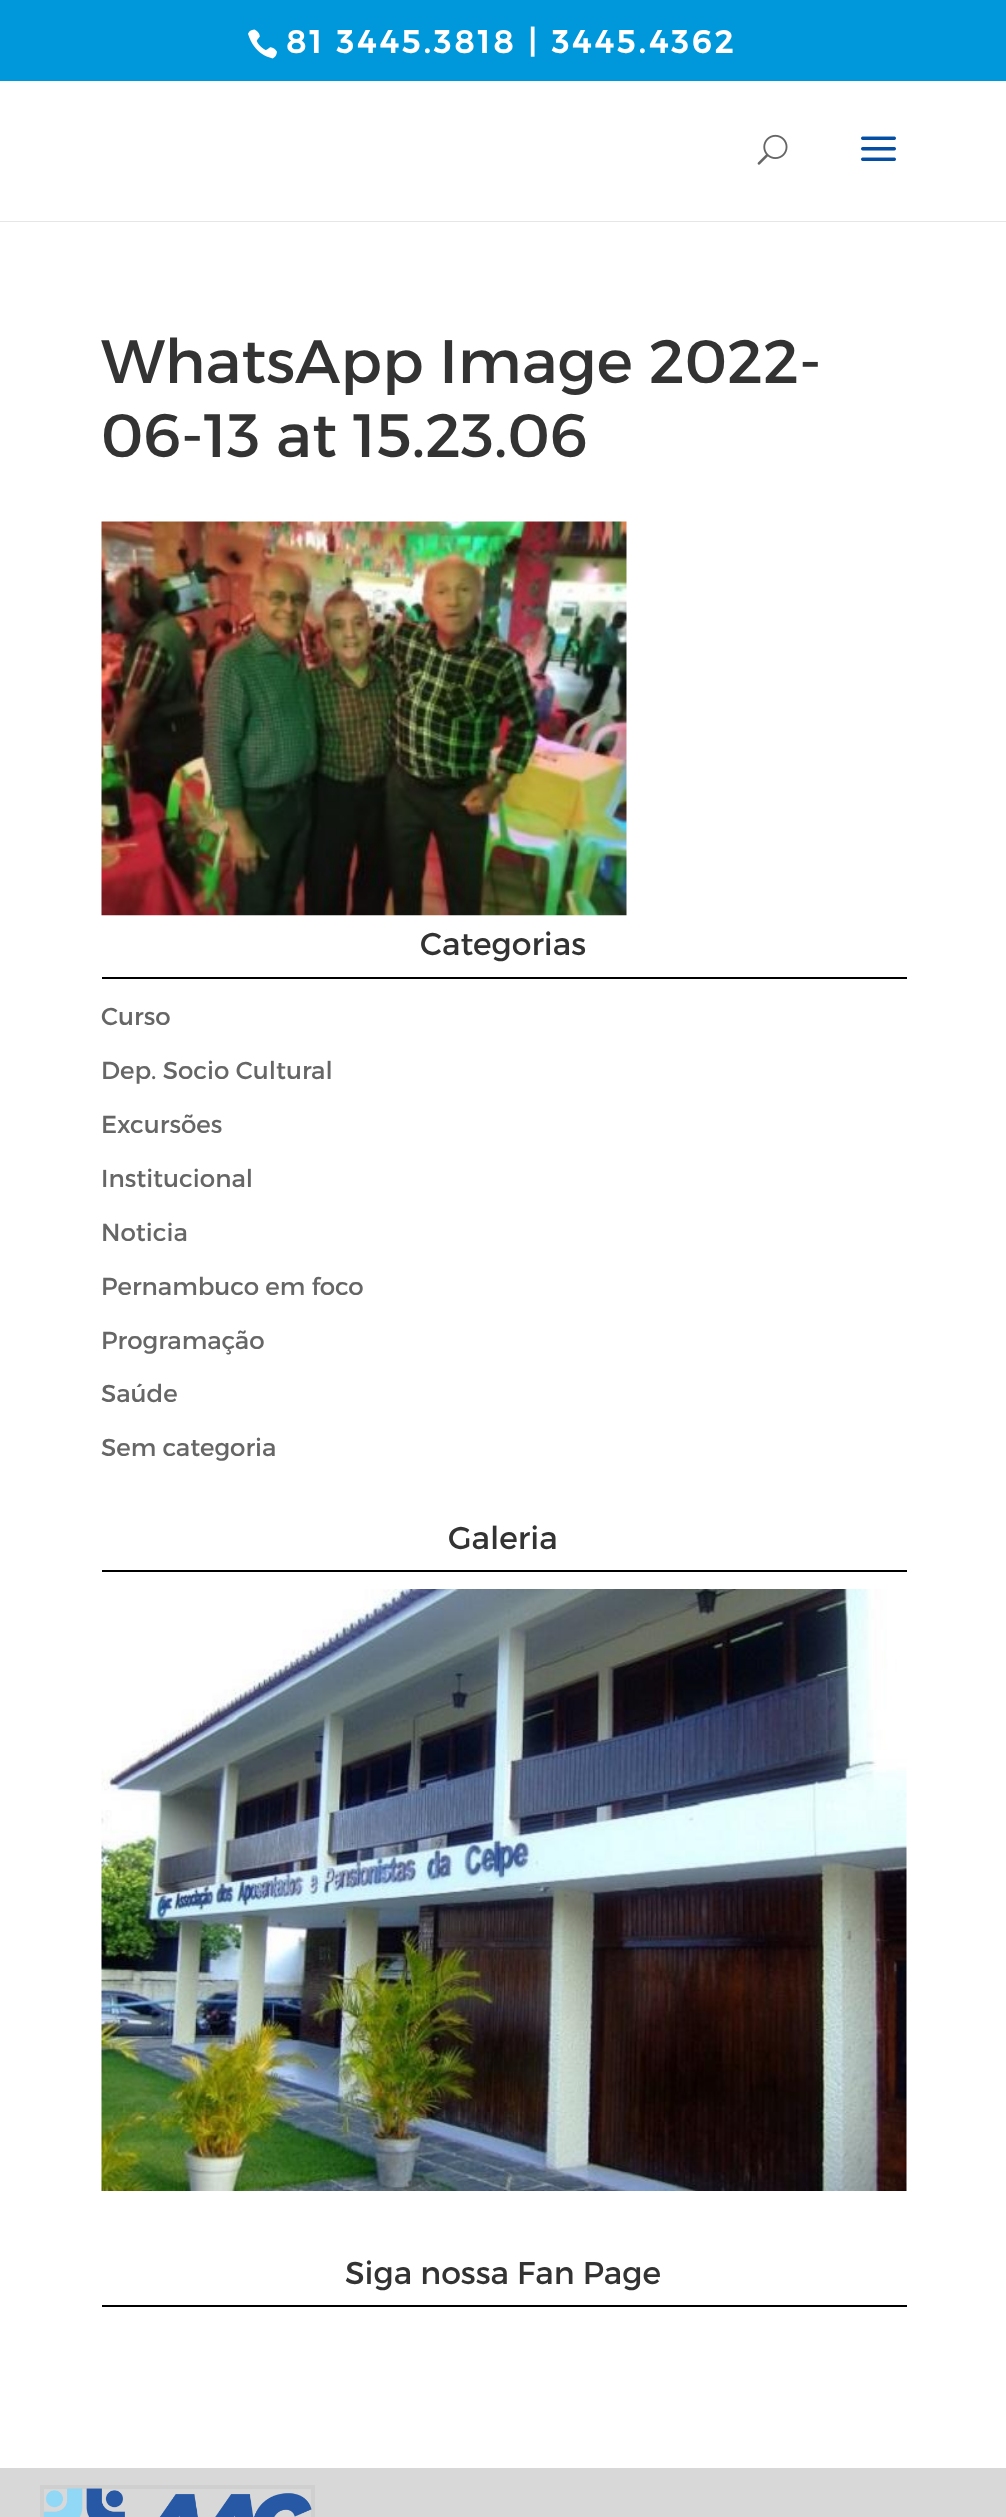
<svg xmlns="http://www.w3.org/2000/svg" width="1006" height="2517" viewBox="0 0 1006 2517">
  <rect width="100%" height="100%" fill="#fff"/>
  <path d="M0 0h1006v81H0z" fill="#0098da"/>
  <image x="248" y="29" width="29" height="30" href="img/1.png"/>
  <path d="M0 221h1006v1H0z" fill="#e6e6e6"/>
  <image x="757" y="134" width="31" height="31" href="img/2.png"/>
  <image x="861" y="136" width="35" height="25" href="img/3.png"/>
  <image x="101" y="521" width="526" height="395" href="img/4.png"/>
  <path d="M102 977h805v2H102z" fill="#000"/>
  <path d="M102 1570h805v2H102z" fill="#000"/>
  <image x="101" y="1589" width="806" height="602" href="img/5.png"/>
  <path d="M102 2305h805v2H102z" fill="#000"/>
  <path d="M0 2468h1006v49H0z" fill="#d8d8d8"/>
  <path d="M42 2487h271v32H42z" fill="none" stroke="#cfcfcf" stroke-width="4"/>
  <image x="43" y="2488" width="269" height="29" href="img/6.png"/>
  <text x="286" y="53" font-family="Montserrat" font-size="31.5" font-weight="bold" letter-spacing="3.5" fill="#fff">81 3445.3818 | 3445.4362</text>
  <g font-family="Montserrat" font-size="61.25" fill="#333">
    <text x="101" y="383">WhatsApp Image 2022-</text>
    <text x="101" y="457">06-13 at 15.23.06</text>
  </g>
  <text x="420" y="955" font-family="Montserrat" font-size="31.5" fill="#333">Categorias</text>
  <g font-family="Montserrat" font-size="24.5" fill="#666">
    <text x="101" y="1025">Curso</text>
    <text x="101" y="1079">Dep. Socio Cultural</text>
    <text x="101" y="1133">Excursões</text>
    <text x="101" y="1187">Institucional</text>
    <text x="101" y="1241">Noticia</text>
    <text x="101" y="1295">Pernambuco em foco</text>
    <text x="101" y="1349">Programação</text>
    <text x="101" y="1402">Saúde</text>
    <text x="101" y="1456">Sem categoria</text>
  </g>
  <g font-family="Montserrat" font-size="31.5" fill="#333">
    <text x="448" y="1549">Galeria</text>
    <text x="345" y="2284">Siga nossa Fan Page</text>
  </g>
</svg>
